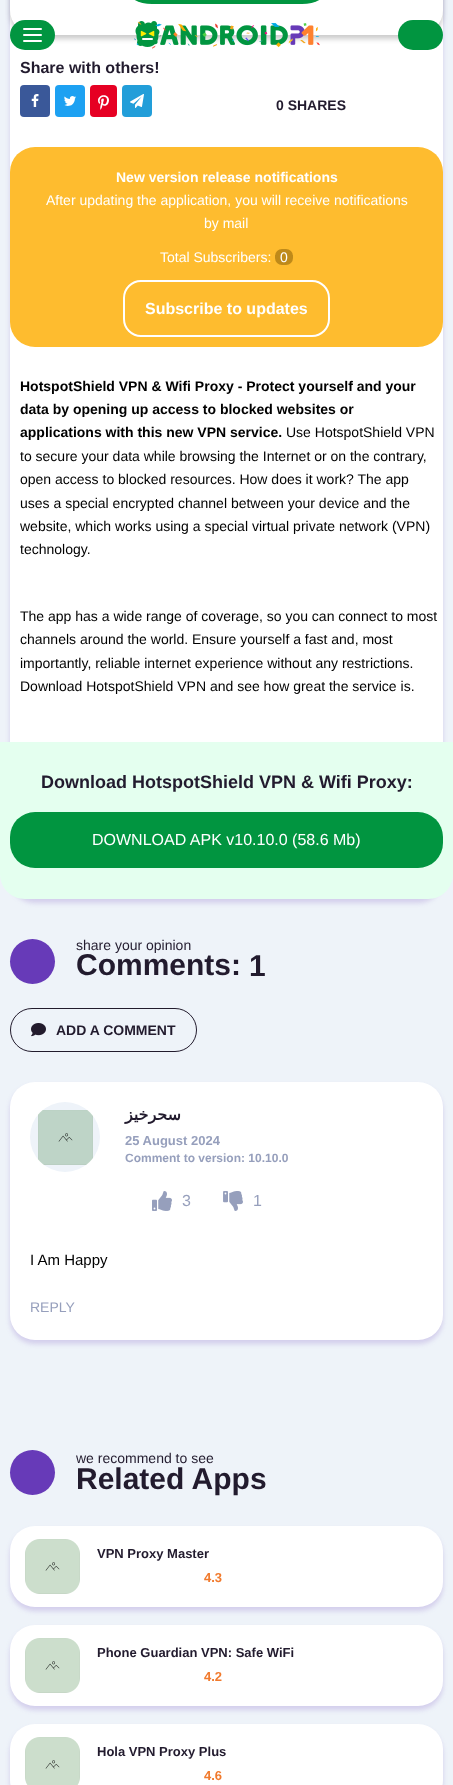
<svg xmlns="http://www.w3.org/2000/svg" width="453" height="1785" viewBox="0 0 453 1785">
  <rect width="100%" height="100%" fill="#eef3f9"/>
  <rect x="10" y="-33" width="433" height="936" rx="25" fill="#673ab833" filter="blur(2.5px)"/>
  <rect x="10" y="-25" width="433" height="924" rx="25" fill="#fff"/>
  <rect x="10" y="-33" width="433" height="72" rx="25" fill="#00000033" filter="blur(2.5px)"/>
  <rect x="10" y="-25" width="433" height="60" rx="25" fill="#fff"/>
  <rect x="10" y="20" width="45" height="30" rx="15" fill="#019540"/>
  <rect x="23" y="28" width="19" height="2" rx="1" fill="#fff"/>
  <rect x="23" y="34" width="19" height="2" rx="1" fill="#fff"/>
  <rect x="23" y="40" width="19" height="2" rx="1" fill="#fff"/>
  <image x="134" y="21" width="186" height="28" href="img/1.png"/>
  <rect x="398" y="20" width="45" height="30" rx="15" fill="#019540"/>
  <rect x="127" y="-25" width="200" height="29" rx="25" fill="#019540"/>
  <rect x="20" y="85" width="30" height="32" rx="4" fill="#3a5899"/>
  <image x="31" y="94" width="8" height="13" href="img/2.png"/>
  <rect x="55" y="85" width="30" height="32" rx="4" fill="#1da1f2"/>
  <image x="64" y="96" width="12" height="10" href="img/3.png"/>
  <rect x="90" y="85" width="27" height="32" rx="4" fill="#e60023"/>
  <image x="98" y="95" width="11" height="15" href="img/4.png"/>
  <rect x="122" y="85" width="30" height="32" rx="4" fill="#229ed9"/>
  <image x="130" y="94" width="14" height="14" href="img/5.png"/>
  <rect x="10" y="147" width="433" height="200" rx="25" fill="#febc2f"/>
  <rect x="275" y="249" width="18" height="16" rx="7" fill="#bf8a19"/>
  <rect x="124" y="281" width="205" height="55" rx="17" fill="none" stroke="#fff" stroke-width="2"/>
  <path d="M0 742H453V874C453 888 442 899 428 899H25C11 899 0 888 0 874Z" fill="#e4ffef"/>
  <rect x="10" y="812" width="433" height="56" rx="25" fill="#019540"/>
  <circle cx="32.5" cy="961.5" r="22.5" fill="#673ab8"/>
  <rect x="10.5" y="1008.5" width="186" height="43" rx="21.5" fill="none" stroke="#221b2d"/>
  <image x="31" y="1023" width="15" height="14" href="img/6.png"/>
  <rect x="10" y="1086" width="433" height="258" rx="25" fill="#673ab833" filter="blur(2.5px)"/>
  <rect x="10" y="1082" width="433" height="258" rx="25" fill="#fff"/>
  <circle cx="65" cy="1137" r="35" fill="#eef3f9"/>
  <image x="38" y="1110" width="55" height="55" href="img/7.png"/>
  <image x="152" y="1191" width="20" height="20" href="img/8.png"/>
  <image x="223" y="1191" width="20" height="20" href="img/9.png"/>
  <circle cx="32.5" cy="1472.5" r="22.5" fill="#673ab8"/>
  <rect x="10" y="1530" width="433" height="81" rx="25" fill="#673ab833" filter="blur(2.5px)"/>
  <rect x="10" y="1526" width="433" height="81" rx="25" fill="#fff"/>
  <image x="25" y="1539" width="55" height="55" href="img/10.png"/>
  <rect x="10" y="1629" width="433" height="81" rx="25" fill="#673ab833" filter="blur(2.5px)"/>
  <rect x="10" y="1625" width="433" height="81" rx="25" fill="#fff"/>
  <image x="25" y="1638" width="55" height="55" href="img/10.png"/>
  <rect x="10" y="1728" width="433" height="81" rx="25" fill="#673ab833" filter="blur(2.5px)"/>
  <rect x="10" y="1724" width="433" height="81" rx="25" fill="#fff"/>
  <image x="25" y="1737" width="55" height="48" href="img/11.png"/>
  <text x="20" y="73" font-family="Liberation Sans" font-size="16" font-weight="bold" fill="#221b2e">Share with others!</text>
  <text x="276" y="110" font-family="Liberation Sans" font-size="14" font-weight="bold" fill="#221b2e">0 SHARES</text>
  <text x="116" y="182" font-family="Liberation Sans" font-size="14" font-weight="bold" fill="#fff">New version release notifications</text>
  <g font-family="Liberation Sans" font-size="14" fill="#fff">
    <text x="46" y="205">After updating the application, you will receive notifications</text>
    <text x="204" y="228">by mail</text>
    <text x="160" y="262">Total Subscribers:</text>
    <text x="280" y="262">0</text>
  </g>
  <text x="145" y="314" font-family="Liberation Sans" font-size="16" font-weight="bold" fill="#fff">Subscribe to updates</text>
  <g font-family="Liberation Sans" font-size="14" font-weight="bold" fill="#000">
    <text x="20" y="391">HotspotShield VPN &amp; Wifi Proxy - Protect yourself and your</text>
    <text x="20" y="414">data by opening up access to blocked websites or</text>
    <text x="20" y="437">applications with this new VPN service.</text>
  </g>
  <g font-family="Liberation Sans" font-size="14" fill="#000">
    <text x="286" y="437">Use HotspotShield VPN</text>
    <text x="20" y="461">to secure your data while browsing the Internet or on the contrary,</text>
    <text x="20" y="484">open access to blocked resources. How does it work? The app</text>
    <text x="20" y="508">uses a special encrypted channel between your device and the</text>
    <text x="20" y="531">website, which works using a special virtual private network (VPN)</text>
    <text x="20" y="554">technology.</text>
    <text x="20" y="621">The app has a wide range of coverage, so you can connect to most</text>
    <text x="20" y="644">channels around the world. Ensure yourself a fast and, most</text>
    <text x="20" y="668">importantly, reliable internet experience without any restrictions.</text>
    <text x="20" y="691">Download HotspotShield VPN and see how great the service is.</text>
  </g>
  <text x="41" y="788" font-family="Liberation Sans" font-size="18" font-weight="bold" fill="#221b2e">Download HotspotShield VPN &amp; Wifi Proxy:</text>
  <text x="92" y="845" font-family="Liberation Sans" font-size="16" fill="#fff">DOWNLOAD APK v10.10.0 (58.6 Mb)</text>
  <text x="76" y="950" font-family="Liberation Sans" font-size="14" fill="#221b2e">share your opinion</text>
  <g font-family="Liberation Sans" font-size="30" font-weight="bold" fill="#221b2e">
    <text x="76" y="975">Comments:</text>
    <text x="249" y="976">1</text>
  </g>
  <text x="56" y="1035" font-family="Liberation Sans" font-size="14" font-weight="bold" fill="#221b2e">ADD A COMMENT</text>
  <text x="181" y="1120" font-family="DejaVu Sans" font-size="16" font-weight="bold" direction="rtl" fill="#221b2e">سحرخیز</text>
  <text x="125" y="1145" font-family="Liberation Sans" font-size="13" font-weight="bold" fill="#969fbc">25 August 2024</text>
  <text x="125" y="1162" font-family="Liberation Sans" font-size="12" font-weight="bold" fill="#969fbc">Comment to version: 10.10.0</text>
  <g font-family="Liberation Sans" font-size="16" fill="#969fbc">
    <text x="182" y="1206">3</text>
    <text x="253" y="1206">1</text>
  </g>
  <text x="30" y="1265" font-family="Liberation Sans" font-size="15" fill="#000">I Am Happy</text>
  <text x="30" y="1312" font-family="Liberation Sans" font-size="14" fill="#969fbc">REPLY</text>
  <text x="76" y="1463" font-family="Liberation Sans" font-size="14" fill="#221b2e">we recommend to see</text>
  <text x="76" y="1489" font-family="Liberation Sans" font-size="30" font-weight="bold" fill="#221b2e">Related Apps</text>
  <text x="97" y="1558" font-family="Liberation Sans" font-size="13" font-weight="bold" fill="#221b2e">VPN Proxy Master</text>
  <text x="204" y="1582" font-family="Liberation Sans" font-size="13" font-weight="bold" fill="#f17a2d">4.3</text>
  <text x="97" y="1657" font-family="Liberation Sans" font-size="13" font-weight="bold" fill="#221b2e">Phone Guardian VPN: Safe WiFi</text>
  <text x="204" y="1681" font-family="Liberation Sans" font-size="13" font-weight="bold" fill="#f17a2d">4.2</text>
  <text x="97" y="1756" font-family="Liberation Sans" font-size="13" font-weight="bold" fill="#221b2e">Hola VPN Proxy Plus</text>
  <text x="204" y="1780" font-family="Liberation Sans" font-size="13" font-weight="bold" fill="#f17a2d">4.6</text>
</svg>
